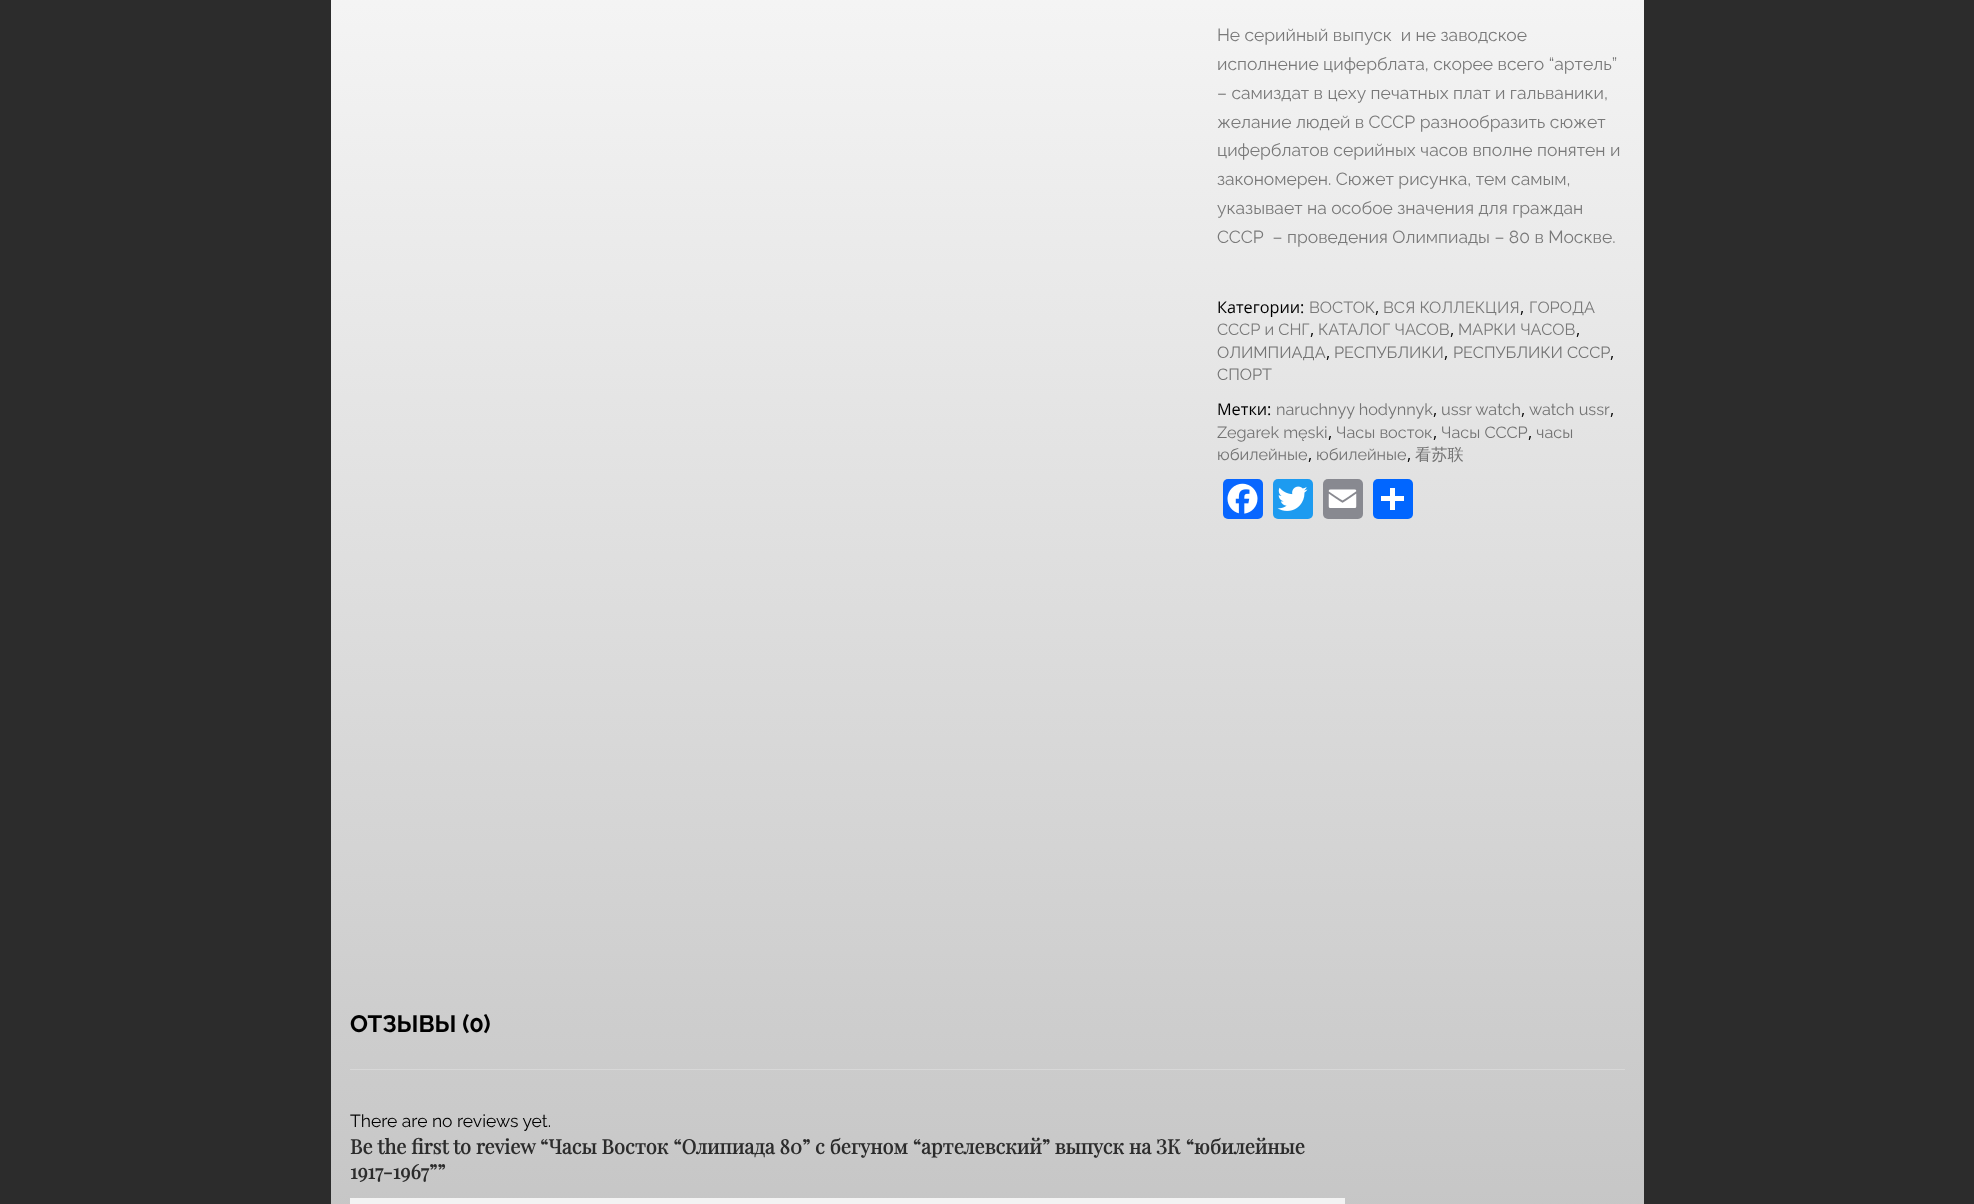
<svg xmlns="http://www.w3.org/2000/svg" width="1974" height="1204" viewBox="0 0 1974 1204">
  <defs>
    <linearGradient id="g1" gradientUnits="userSpaceOnUse" x1="987" y1="-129" x2="988" y2="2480"><stop offset="0" stop-color="#f9f9f9"/><stop offset="1" stop-color="#969696"/></linearGradient>
  </defs>
  <rect width="100%" height="100%" fill="#2c2c2c"/>
  <path d="M331 0h1313v1204H331z" fill="url(#g1)"/>
  <rect x="1223" y="479" width="40" height="40" rx="5" fill="#0866ff"/>
  <image x="1227" y="483" width="31" height="31" href="img/1.png"/>
  <rect x="1273" y="479" width="40" height="40" rx="5" fill="#1d9bf0"/>
  <image x="1277" y="486" width="31" height="25" href="img/2.png"/>
  <rect x="1323" y="479" width="40" height="40" rx="5" fill="#888990"/>
  <image x="1328" y="489" width="29" height="19" href="img/3.png"/>
  <rect x="1373" y="479" width="40" height="40" rx="5" fill="#0166ff"/>
  <path d="M1390 488h5v22H1390z" fill="#fff"/>
  <path d="M1381 496h23v5H1381z" fill="#fff"/>
  <path d="M350 1069h1275v1H350z" fill="#d8d8d8"/>
  <path d="M350 1198h995v6H350z" fill="#f3f3f3"/>
  <g font-family="Raleway" font-size="17.5" fill="#797979">
    <text x="1217" y="41" xml:space="preserve">Не серийный выпуск  и не заводское</text>
    <text x="1217" y="70">исполнение циферблата, скорее всего “артель”</text>
    <text x="1217" y="99">– самиздат в цеху печатных плат и гальваники,</text>
    <text x="1217" y="128">желание людей в СССР разнообразить сюжет</text>
    <text x="1217" y="156">циферблатов серийных часов вполне понятен и</text>
    <text x="1217" y="185">закономерен. Сюжет рисунка, тем самым,</text>
    <text x="1217" y="214">указывает на особое значения для граждан</text>
    <text x="1217" y="243" xml:space="preserve">СССР  – проведения Олимпиады – 80 в Москве.</text>
  </g>
  <text x="1217" y="313" font-family="Open Sans" font-size="16.25" fill="#000">Категории:</text>
  <text x="1309" y="313" font-family="Raleway" font-size="16.25" fill="#797979">ВОСТОК</text>
  <text x="1375" y="313" font-family="Open Sans" font-size="16.25" fill="#000">,</text>
  <text x="1383" y="313" font-family="Raleway" font-size="16.25" fill="#797979">ВСЯ КОЛЛЕКЦИЯ</text>
  <text x="1520" y="313" font-family="Open Sans" font-size="16.25" fill="#000">,</text>
  <g font-family="Raleway" font-size="16.25" fill="#797979">
    <text x="1529" y="313">ГОРОДА</text>
    <text x="1217" y="335">СССР и СНГ</text>
  </g>
  <text x="1310" y="335" font-family="Open Sans" font-size="16.25" fill="#000">,</text>
  <text x="1318" y="335" font-family="Raleway" font-size="16.25" fill="#797979">КАТАЛОГ ЧАСОВ</text>
  <text x="1450" y="335" font-family="Open Sans" font-size="16.25" fill="#000">,</text>
  <text x="1458" y="335" font-family="Raleway" font-size="16.25" fill="#797979">МАРКИ ЧАСОВ</text>
  <text x="1576" y="335" font-family="Open Sans" font-size="16.25" fill="#000">,</text>
  <text x="1217" y="358" font-family="Raleway" font-size="16.25" fill="#737373">ОЛИМПИАДА</text>
  <text x="1326" y="358" font-family="Open Sans" font-size="16.25" fill="#000">,</text>
  <text x="1334" y="358" font-family="Raleway" font-size="16.25" fill="#737373">РЕСПУБЛИКИ</text>
  <text x="1444" y="358" font-family="Open Sans" font-size="16.25" fill="#000">,</text>
  <text x="1453" y="358" font-family="Raleway" font-size="16.25" fill="#737373">РЕСПУБЛИКИ СССР</text>
  <text x="1610" y="358" font-family="Open Sans" font-size="16.25" fill="#000">,</text>
  <text x="1217" y="380" font-family="Raleway" font-size="16.25" fill="#737373">СПОРТ</text>
  <text x="1217" y="415" font-family="Open Sans" font-size="16.25" fill="#000">Метки:</text>
  <text x="1276" y="415" font-family="Raleway" font-size="16.25" fill="#737373">naruchnyy hodynnyk</text>
  <text x="1433" y="415" font-family="Open Sans" font-size="16.25" fill="#000">,</text>
  <text x="1441" y="415" font-family="Raleway" font-size="16.25" fill="#737373">ussr watch</text>
  <text x="1521" y="415" font-family="Open Sans" font-size="16.25" fill="#000">,</text>
  <text x="1529" y="415" font-family="Raleway" font-size="16.25" fill="#737373">watch ussr</text>
  <text x="1610" y="415" font-family="Open Sans" font-size="16.25" fill="#000">,</text>
  <text x="1217" y="438" font-family="Raleway" font-size="16.25" fill="#737373">Zegarek męski</text>
  <text x="1328" y="438" font-family="Open Sans" font-size="16.25" fill="#000">,</text>
  <text x="1336" y="438" font-family="Raleway" font-size="16.25" fill="#737373">Часы восток</text>
  <text x="1433" y="438" font-family="Open Sans" font-size="16.25" fill="#000">,</text>
  <text x="1441" y="438" font-family="Raleway" font-size="16.25" fill="#737373">Часы СССР</text>
  <text x="1528" y="438" font-family="Open Sans" font-size="16.25" fill="#000">,</text>
  <g font-family="Raleway" font-size="16.25" fill="#737373">
    <text x="1536" y="438">часы</text>
    <text x="1217" y="460">юбилейные</text>
  </g>
  <text x="1308" y="460" font-family="Open Sans" font-size="16.25" fill="#000">,</text>
  <text x="1316" y="460" font-family="Raleway" font-size="16.25" fill="#737373">юбилейные</text>
  <text x="1407" y="460" font-family="Open Sans" font-size="16.25" fill="#000">,</text>
  <text x="1415" y="460" font-family="WenQuanYi Zen Hei" font-size="16.25" font-weight="500" fill="#737373">看苏联</text>
  <text x="350" y="1032" font-family="Raleway" font-size="23.75" font-weight="bold" fill="#000">ОТЗЫВЫ (0)</text>
  <text x="350" y="1127" font-family="Raleway" font-size="17.5" fill="#000">There are no reviews yet.</text>
  <g font-family="Playfair Display" font-size="20" font-weight="bold" fill="#2c2c2c">
    <text x="350" y="1154">Be the first to review “Часы Восток “Олипиада 80” с бегуном “артелевский” выпуск на ЗК “юбилейные</text>
    <text x="350" y="1179">1917-1967””</text>
  </g>
</svg>
